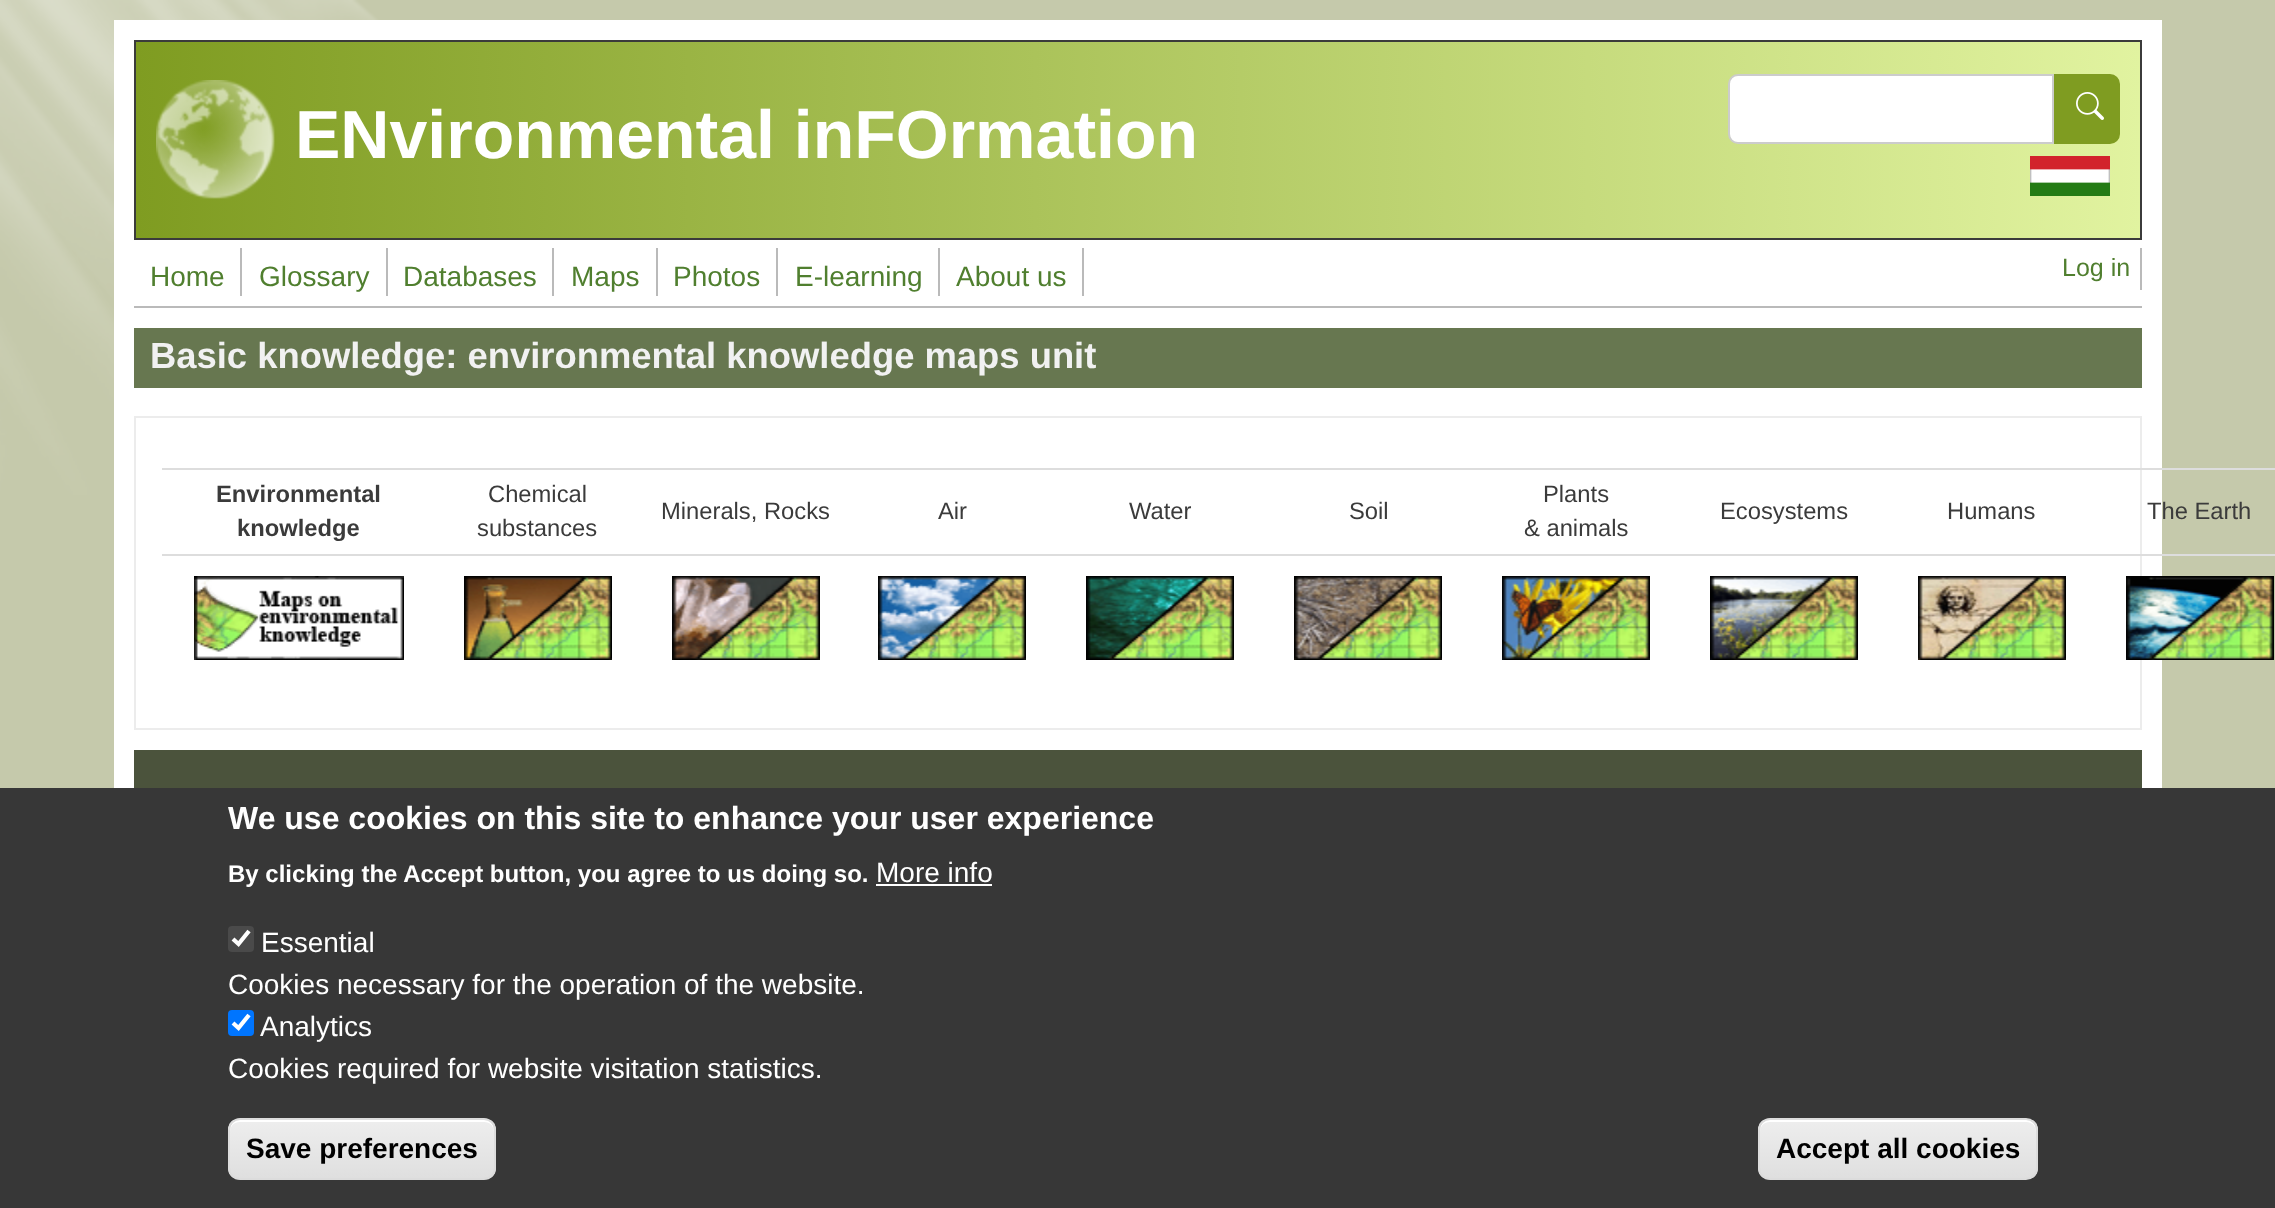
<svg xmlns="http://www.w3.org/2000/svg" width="2275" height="1208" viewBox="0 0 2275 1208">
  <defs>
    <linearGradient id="g1" gradientUnits="userSpaceOnUse" x1="136" y1="140" x2="2140" y2="140"><stop offset="0" stop-color="#7f9c21"/><stop offset="1" stop-color="#e1f3a0"/></linearGradient>
    <clipPath id="clip1"><rect x="228" y="1118" width="268" height="62" rx="12"/></clipPath>
    <linearGradient id="g2" gradientUnits="userSpaceOnUse" x1="362" y1="1120" x2="362" y2="1178"><stop offset="0.05" stop-color="#ededed"/><stop offset="1" stop-color="#dfdfdf"/></linearGradient>
    <clipPath id="clip2"><rect x="1758" y="1118" width="280" height="62" rx="12"/></clipPath>
    <linearGradient id="g3" gradientUnits="userSpaceOnUse" x1="1898" y1="1120" x2="1898" y2="1178"><stop offset="0.05" stop-color="#ededed"/><stop offset="1" stop-color="#dfdfdf"/></linearGradient>
  </defs>
  <rect width="100%" height="100%" fill="#c5c9ab"/>
  <image x="0" y="0" width="379" height="495" href="img/1.png"/>
  <path d="M114 20h2048v768H114z" fill="#fff"/>
  <path d="M136 42h2004v196H136z" fill="url(#g1)"/>
  <path d="M135 41h2006v198H135z" fill="none" stroke="#3b3b3b" stroke-width="2"/>
  <image x="156" y="80" width="119" height="119" href="img/2.png"/>
  <path d="M1738 75H2053V143H1738C1733 143 1729 139 1729 134V84C1729 79 1733 75 1738 75Z" fill="#fff" stroke="#ccc" stroke-width="2"/>
  <path d="M2055 75H2110C2115 75 2119 79 2119 84V134C2119 139 2115 143 2110 143H2055Z" fill="#7f9c21" stroke="#7f9c21" stroke-width="2"/>
  <image x="2076" y="92" width="28" height="28" href="img/3.png"/>
  <image x="2030" y="156" width="80" height="40" href="img/4.png"/>
  <path d="M134 306h2008v2H134z" fill="#bababa"/>
  <path d="M240 248h2v48H240z" fill="#bababa"/>
  <path d="M386 248h2v48H386z" fill="#bababa"/>
  <path d="M552 248h2v48H552z" fill="#bababa"/>
  <path d="M656 248h2v48H656z" fill="#bababa"/>
  <path d="M776 248h2v48H776z" fill="#bababa"/>
  <path d="M938 248h2v48H938z" fill="#bababa"/>
  <path d="M1082 248h2v48H1082z" fill="#bababa"/>
  <path d="M2140 248h2v42H2140z" fill="#bababa"/>
  <path d="M134 328h2008v60H134z" fill="#677750"/>
  <path d="M135 417h2006v312H135z" fill="none" stroke="#ececec" stroke-width="2"/>
  <path d="M162 468h2113v2H162z" fill="#ddd"/>
  <path d="M162 554h2113v2H162z" fill="#ddd"/>
  <image x="194" y="576" width="210" height="84" href="img/5.png"/>
  <image x="464" y="576" width="148" height="84" href="img/6.png"/>
  <image x="672" y="576" width="148" height="84" href="img/7.png"/>
  <image x="878" y="576" width="148" height="84" href="img/8.png"/>
  <image x="1086" y="576" width="148" height="84" href="img/9.png"/>
  <image x="1294" y="576" width="148" height="84" href="img/10.png"/>
  <image x="1502" y="576" width="148" height="84" href="img/11.png"/>
  <image x="1710" y="576" width="148" height="84" href="img/12.png"/>
  <image x="1918" y="576" width="148" height="84" href="img/13.png"/>
  <image x="2126" y="576" width="148" height="84" href="img/14.png"/>
  <path d="M134 750h2008v38H134z" fill="#4b533c"/>
  <path d="M0 788h2275v420H0z" fill="#373737"/>
  <path d="M876 884h116v2H876z" fill="#fff"/>
  <rect x="228" y="926" width="26" height="26" rx="4" fill="#4a4a4a"/>
  <path d="M233 939L238.5 944L249 931" fill="none" stroke="#fff" stroke-width="4.2"/>
  <rect x="228" y="1010" width="26" height="26" rx="4" fill="#0075ff"/>
  <path d="M233 1023L238.5 1028L249 1015" fill="none" stroke="#fff" stroke-width="4.2"/>
  <g clip-path="url(#clip1)">
    <path d="M228 1120h268v58H228z" fill="url(#g2)"/>
  </g>
  <path d="M240 1122H484C490 1122 494 1126 494 1132V1130C494 1124 490 1120 484 1120H240C234 1120 230 1124 230 1130V1132C230 1126 234 1122 240 1122Z" fill="#fff"/>
  <rect x="229" y="1119" width="266" height="60" rx="11" fill="none" stroke="#dcdcdc" stroke-width="2"/>
  <g clip-path="url(#clip2)">
    <path d="M1758 1120h280v58H1758z" fill="url(#g3)"/>
  </g>
  <path d="M1770 1122H2026C2032 1122 2036 1126 2036 1132V1130C2036 1124 2032 1120 2026 1120H1770C1764 1120 1760 1124 1760 1130V1132C1760 1126 1764 1122 1770 1122Z" fill="#fff"/>
  <rect x="1759" y="1119" width="278" height="60" rx="11" fill="none" stroke="#dcdcdc" stroke-width="2"/>
  <text x="295" y="158" font-family="Liberation Sans" font-size="68" font-weight="bold" fill="#fff">ENvironmental inFOrmation</text>
  <g font-family="Liberation Sans" font-size="28" fill="#507f2f">
    <text x="150" y="286">Home</text>
    <text x="259" y="286">Glossary</text>
    <text x="403" y="286">Databases</text>
    <text x="571" y="286">Maps</text>
    <text x="673" y="286">Photos</text>
    <text x="795" y="286">E-learning</text>
    <text x="956" y="286">About us</text>
  </g>
  <text x="2062" y="276" font-family="Liberation Sans" font-size="25" fill="#507f2f">Log in</text>
  <text x="150" y="368" font-family="Liberation Sans" font-size="36.4" font-weight="bold" fill="#f1f1f1">Basic knowledge: environmental knowledge maps unit</text>
  <g font-family="Liberation Sans" font-size="23.75" font-weight="bold" fill="#3b3b3b">
    <text x="216" y="502">Environmental</text>
    <text x="237" y="536">knowledge</text>
  </g>
  <g font-family="Liberation Sans" font-size="23.75" fill="#3b3b3b">
    <text x="488" y="502">Chemical</text>
    <text x="477" y="536">substances</text>
    <text x="661" y="519">Minerals, Rocks</text>
    <text x="938" y="519">Air</text>
    <text x="1129" y="519">Water</text>
    <text x="1349" y="519">Soil</text>
    <text x="1543" y="502">Plants</text>
    <text x="1524" y="536">&amp; animals</text>
    <text x="1720" y="519">Ecosystems</text>
    <text x="1947" y="519">Humans</text>
    <text x="2147" y="519">The Earth</text>
  </g>
  <text x="228" y="829" font-family="Liberation Sans" font-size="32" font-weight="bold" fill="#fff">We use cookies on this site to enhance your user experience</text>
  <text x="228" y="882" font-family="Liberation Sans" font-size="24" font-weight="bold" fill="#fff">By clicking the Accept button, you agree to us doing so.</text>
  <g font-family="Liberation Sans" font-size="28" fill="#fff">
    <text x="876" y="882">More info</text>
    <text x="261" y="952">Essential</text>
    <text x="228" y="994">Cookies necessary for the operation of the website.</text>
    <text x="260" y="1036">Analytics</text>
    <text x="228" y="1078">Cookies required for website visitation statistics.</text>
  </g>
  <g font-family="Liberation Sans" font-size="28" font-weight="bold" fill="#000">
    <text x="246" y="1158">Save preferences</text>
    <text x="1776" y="1158">Accept all cookies</text>
  </g>
</svg>
